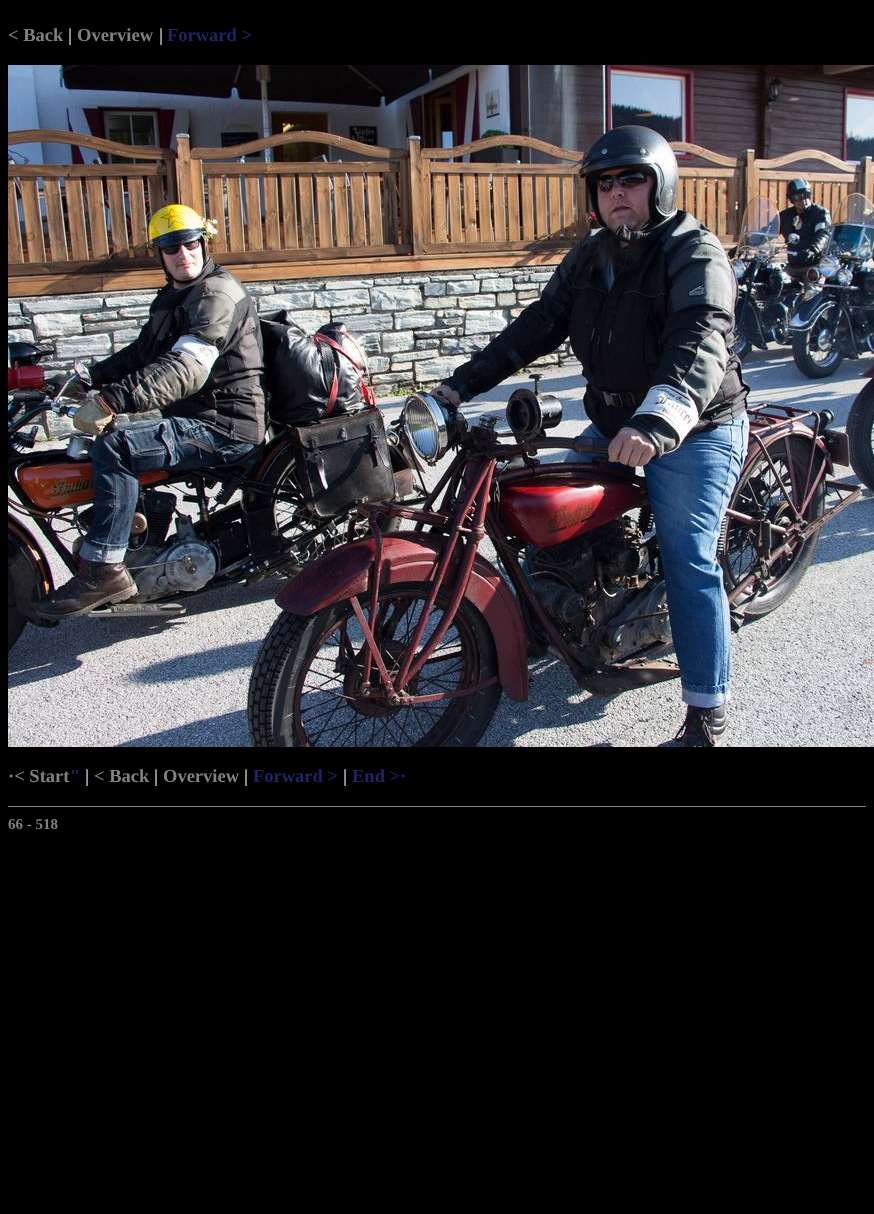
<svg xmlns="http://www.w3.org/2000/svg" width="874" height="1214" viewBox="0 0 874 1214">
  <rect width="100%" height="100%" fill="#000"/>
  <image x="8" y="65" width="866" height="682" href="img/1.png"/>
  <path d="M8 806h858v1H8z" fill="#888"/>
  <text x="8" y="41" font-family="Liberation Serif" font-size="18.5" font-weight="bold" fill="#808080">&lt; Back</text>
  <text x="68" y="41" font-family="Liberation Serif" font-size="18.5" font-weight="bold" fill="#ccc">|</text>
  <text x="77" y="41" font-family="Liberation Serif" font-size="18.5" font-weight="bold" fill="#808080">Overview</text>
  <text x="159" y="41" font-family="Liberation Serif" font-size="18.5" font-weight="bold" fill="#ccc">|</text>
  <text x="167" y="41" font-family="Liberation Serif" font-size="18.5" font-weight="bold" fill="#226">Forward &gt;</text>
  <text x="8" y="782" font-family="Liberation Serif" font-size="18.5" font-weight="bold" fill="#808080">·&lt; Start</text>
  <text x="70" y="782" font-family="Liberation Serif" font-size="18.5" font-weight="bold" fill="#226">"</text>
  <text x="85" y="782" font-family="Liberation Serif" font-size="18.5" font-weight="bold" fill="#ccc">|</text>
  <text x="94" y="782" font-family="Liberation Serif" font-size="18.5" font-weight="bold" fill="#808080">&lt; Back</text>
  <text x="154" y="782" font-family="Liberation Serif" font-size="18.5" font-weight="bold" fill="#ccc">|</text>
  <text x="163" y="782" font-family="Liberation Serif" font-size="18.5" font-weight="bold" fill="#808080">Overview</text>
  <text x="244" y="782" font-family="Liberation Serif" font-size="18.5" font-weight="bold" fill="#ccc">|</text>
  <text x="253" y="782" font-family="Liberation Serif" font-size="18.5" font-weight="bold" fill="#226">Forward &gt;</text>
  <text x="343" y="782" font-family="Liberation Serif" font-size="18.5" font-weight="bold" fill="#ccc">|</text>
  <text x="352" y="782" font-family="Liberation Serif" font-size="18.5" font-weight="bold" fill="#226">End &gt;·</text>
  <text x="8" y="829" font-family="Liberation Serif" font-size="15" font-weight="bold" fill="#808080">66 - 518</text>
</svg>
